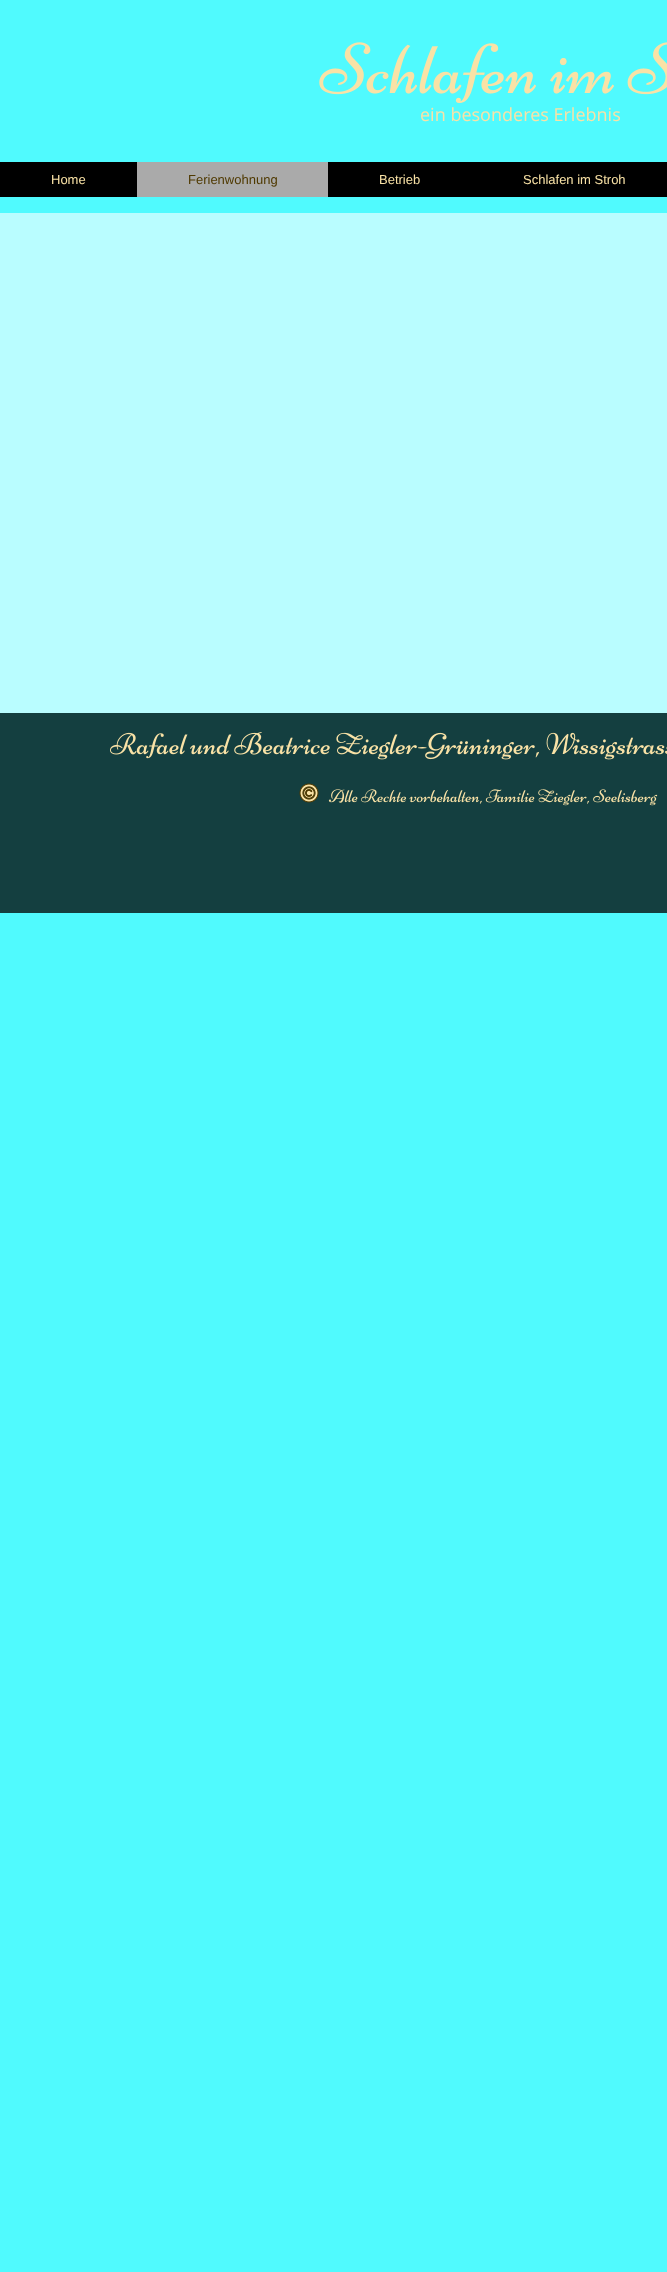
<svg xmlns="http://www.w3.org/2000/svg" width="667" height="2272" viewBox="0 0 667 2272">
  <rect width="100%" height="100%" fill="#50fafe"/>
  <image x="319" y="42" width="348" height="61" href="img/1.png"/>
  <path d="M0 162h667v35H0z" fill="#000"/>
  <path d="M137 162h191v35H137z" fill="#aaa"/>
  <path d="M0 213h667v500H0z" fill="#b9fdff"/>
  <path d="M0 713h667v200H0z" fill="#143f40"/>
  <image x="110" y="732" width="557" height="28" href="img/2.png"/>
  <image x="328" y="789" width="330" height="17" href="img/3.png"/>
  <image x="299" y="783" width="20" height="20" href="img/4.png"/>
  <text x="420" y="121" font-family="Open Sans" font-size="18" fill="#f9e2a6">ein besonderes Erlebnis</text>
  <text x="51" y="184" font-family="Liberation Sans" font-size="13" fill="#f9e2a6">Home</text>
  <text x="188" y="184" font-family="Liberation Sans" font-size="13" fill="#4f3900">Ferienwohnung</text>
  <g font-family="Liberation Sans" font-size="13" fill="#f9e2a6">
    <text x="379" y="184">Betrieb</text>
    <text x="523" y="184">Schlafen im Stroh</text>
  </g>
</svg>
